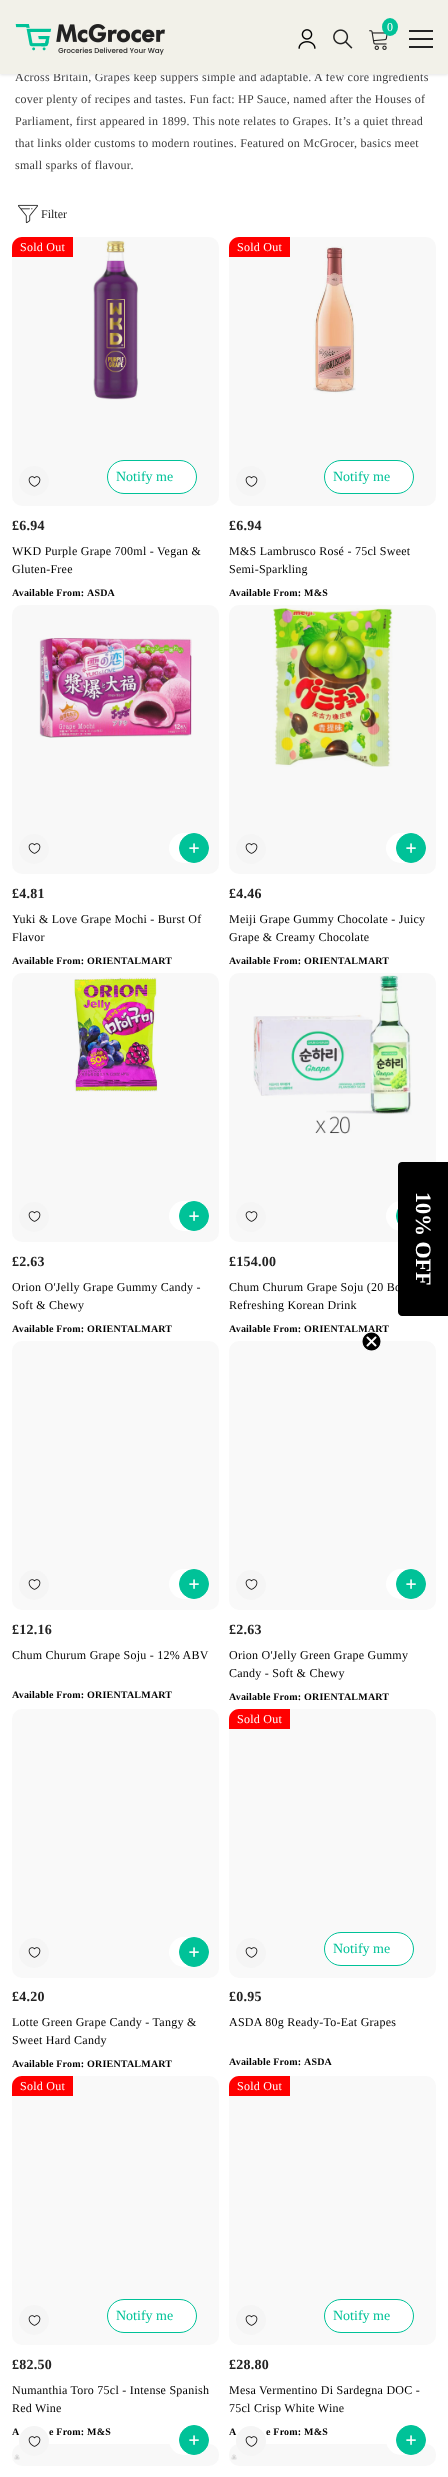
<svg xmlns="http://www.w3.org/2000/svg" width="448" height="2477" viewBox="0 0 448 2477">
  <rect width="100%" height="100%" fill="#fff"/>
  <path d="M0 1h448v74H0z" fill="#0000001a" filter="blur(1.5px)"/>
  <image x="18" y="204" width="20" height="20" href="img/5.png"/>
  <image x="93" y="240" width="46" height="160" href="img/6.png"/>
  <rect x="12" y="237" width="207" height="269" rx="10" fill="#bfbfbf1a"/>
  <path d="M22 237H73V257H12V247C12 241.5 16.5 237 22 237Z" fill="#f00"/>
  <circle cx="34" cy="481" r="15" fill="#f5f5f5"/>
  <image x="28" y="476" width="13" height="11" href="img/7.png"/>
  <rect x="107.5" y="460.5" width="89" height="33" rx="16.5" fill="#fff" stroke="#00c298"/>
  <image x="313" y="246" width="43" height="148" href="img/8.png"/>
  <rect x="229" y="237" width="207" height="269" rx="10" fill="#bfbfbf1a"/>
  <path d="M239 237H290V257H229V247C229 241.5 233.5 237 239 237Z" fill="#f00"/>
  <circle cx="251" cy="481" r="15" fill="#f5f5f5"/>
  <image x="245" y="476" width="13" height="11" href="img/7.png"/>
  <rect x="324.5" y="460.5" width="89" height="33" rx="16.5" fill="#fff" stroke="#00c298"/>
  <image x="39" y="638" width="153" height="100" href="img/9.png"/>
  <rect x="12" y="605" width="207" height="269" rx="10" fill="#bfbfbf1a"/>
  <circle cx="34" cy="849" r="15" fill="#f5f5f5"/>
  <image x="28" y="843" width="13" height="11" href="img/7.png"/>
  <rect x="169" y="833" width="40" height="30" rx="15" fill="#fff"/>
  <circle cx="194" cy="848" r="14.5" fill="#00c298" stroke="#00c298"/>
  <image x="189" y="843" width="10" height="10" href="img/10.png"/>
  <image x="273" y="608" width="120" height="159" href="img/11.png"/>
  <rect x="229" y="605" width="207" height="269" rx="10" fill="#bfbfbf1a"/>
  <circle cx="251" cy="849" r="15" fill="#f5f5f5"/>
  <image x="245" y="843" width="13" height="11" href="img/7.png"/>
  <rect x="386" y="833" width="40" height="30" rx="15" fill="#fff"/>
  <circle cx="411" cy="848" r="14.5" fill="#00c298" stroke="#00c298"/>
  <image x="406" y="843" width="10" height="10" href="img/10.png"/>
  <image x="74" y="977" width="84" height="115" href="img/12.png"/>
  <rect x="12" y="973" width="207" height="269" rx="10" fill="#bfbfbf1a"/>
  <circle cx="34" cy="1217" r="15" fill="#f5f5f5"/>
  <image x="28" y="1211" width="13" height="11" href="img/7.png"/>
  <rect x="169" y="1201" width="40" height="30" rx="15" fill="#fff"/>
  <circle cx="194" cy="1216" r="14.5" fill="#00c298" stroke="#00c298"/>
  <image x="189" y="1211" width="10" height="10" href="img/10.png"/>
  <image x="253" y="975" width="159" height="159" href="img/13.png"/>
  <rect x="229" y="973" width="207" height="269" rx="10" fill="#bfbfbf1a"/>
  <circle cx="251" cy="1217" r="15" fill="#f5f5f5"/>
  <image x="245" y="1211" width="13" height="11" href="img/7.png"/>
  <rect x="386" y="1201" width="40" height="30" rx="15" fill="#fff"/>
  <circle cx="411" cy="1216" r="14.5" fill="#00c298" stroke="#00c298"/>
  <rect x="12" y="1341" width="207" height="269" rx="10" fill="#f9f9f9"/>
  <circle cx="34" cy="1585" r="15" fill="#f5f5f5"/>
  <image x="28" y="1579" width="13" height="11" href="img/7.png"/>
  <rect x="169" y="1569" width="40" height="30" rx="15" fill="#fff"/>
  <circle cx="194" cy="1584" r="14.5" fill="#00c298" stroke="#00c298"/>
  <image x="189" y="1579" width="10" height="10" href="img/10.png"/>
  <rect x="229" y="1341" width="207" height="269" rx="10" fill="#f9f9f9"/>
  <circle cx="251" cy="1585" r="15" fill="#f5f5f5"/>
  <image x="245" y="1579" width="13" height="11" href="img/7.png"/>
  <rect x="386" y="1569" width="40" height="30" rx="15" fill="#fff"/>
  <circle cx="411" cy="1584" r="14.5" fill="#00c298" stroke="#00c298"/>
  <image x="406" y="1579" width="10" height="10" href="img/10.png"/>
  <rect x="12" y="1709" width="207" height="269" rx="10" fill="#f9f9f9"/>
  <circle cx="34" cy="1953" r="15" fill="#f5f5f5"/>
  <image x="28" y="1947" width="13" height="11" href="img/7.png"/>
  <rect x="169" y="1937" width="40" height="30" rx="15" fill="#fff"/>
  <circle cx="194" cy="1952" r="14.5" fill="#00c298" stroke="#00c298"/>
  <image x="189" y="1947" width="10" height="10" href="img/10.png"/>
  <rect x="229" y="1709" width="207" height="269" rx="10" fill="#f9f9f9"/>
  <path d="M239 1709H290V1729H229V1719C229 1713.5 233.5 1709 239 1709Z" fill="#f00"/>
  <circle cx="251" cy="1953" r="15" fill="#f5f5f5"/>
  <image x="245" y="1947" width="13" height="11" href="img/7.png"/>
  <rect x="324.5" y="1932.5" width="89" height="33" rx="16.5" fill="#fff" stroke="#00c298"/>
  <rect x="12" y="2076" width="207" height="269" rx="10" fill="#f9f9f9"/>
  <path d="M22 2076H73V2096H12V2086C12 2080.5 16.5 2076 22 2076Z" fill="#f00"/>
  <circle cx="34" cy="2320" r="15" fill="#f5f5f5"/>
  <image x="28" y="2315" width="13" height="11" href="img/7.png"/>
  <rect x="107.5" y="2299.5" width="89" height="33" rx="16.5" fill="#fff" stroke="#00c298"/>
  <rect x="229" y="2076" width="207" height="269" rx="10" fill="#f9f9f9"/>
  <path d="M239 2076H290V2096H229V2086C229 2080.5 233.5 2076 239 2076Z" fill="#f00"/>
  <circle cx="251" cy="2320" r="15" fill="#f5f5f5"/>
  <image x="245" y="2315" width="13" height="11" href="img/7.png"/>
  <rect x="324.5" y="2299.5" width="89" height="33" rx="16.5" fill="#fff" stroke="#00c298"/>
  <image x="14" y="2454" width="6" height="6" href="img/14.png"/>
  <rect x="12" y="2444" width="207" height="22" rx="10" fill="#bfbfbf1a"/>
  <rect x="169" y="2425" width="40" height="30" rx="15" fill="#fff"/>
  <circle cx="194" cy="2440" r="14.5" fill="#00c298" stroke="#00c298"/>
  <image x="189" y="2435" width="10" height="10" href="img/10.png"/>
  <image x="231" y="2454" width="6" height="6" href="img/14.png"/>
  <rect x="229" y="2444" width="207" height="22" rx="10" fill="#bfbfbf1a"/>
  <rect x="386" y="2425" width="40" height="30" rx="15" fill="#fff"/>
  <circle cx="411" cy="2440" r="14.5" fill="#00c298" stroke="#00c298"/>
  <image x="406" y="2435" width="10" height="10" href="img/10.png"/>
  <path d="M448 1162V1316H402C400 1316 398 1314 398 1312V1166C398 1163 400 1162 402 1162Z" fill="#000"/>
  <text x="15" y="81" font-family="Liberation Serif" font-size="12" letter-spacing="0.25" fill="#3c3c3c">Across Britain, Grapes keep suppers simple and adaptable. A few core ingredients</text>
  <path d="M0 0h448v74H0z" fill="#f2f1e9"/>
  <path d="M409 46h24v2H409z" fill="#232323"/>
  <path d="M409 30h24v2H409z" fill="#232323"/>
  <path d="M409 38h24v2H409z" fill="#232323"/>
  <image x="369" y="30" width="19" height="20" href="img/4.png"/>
  <ellipse cx="390" cy="27" rx="8" ry="9" fill="#00c298"/>
  <text x="387" y="31" font-family="Liberation Serif" font-size="12" fill="#fff">0</text>
  <image x="333" y="29" width="20" height="20" href="img/3.png"/>
  <image x="298" y="29" width="18" height="20" href="img/2.png"/>
  <image x="15" y="24" width="150" height="31" href="img/1.png"/>
  <g font-family="Liberation Serif" font-size="12" letter-spacing="0.25" fill="#3c3c3c">
    <text x="15" y="103">cover plenty of recipes and tastes. Fun fact: HP Sauce, named after the Houses of</text>
    <text x="15" y="125">Parliament, first appeared in 1899. This note relates to Grapes. It’s a quiet thread</text>
    <text x="15" y="147">that links older customs to modern routines. Featured on McGrocer, basics meet</text>
    <text x="15" y="169">small sparks of flavour.</text>
  </g>
  <text x="41" y="218" font-family="Liberation Serif" font-size="12" fill="#232323">Filter</text>
  <text x="20" y="251" font-family="Liberation Serif" font-size="12" letter-spacing="0.25" fill="#fff">Sold Out</text>
  <text x="116" y="481" font-family="Liberation Serif" font-size="14" fill="#00c298">Notify me</text>
  <text x="12" y="530" font-family="Liberation Serif" font-size="14" font-weight="bold" letter-spacing="0.25" fill="#232323">£6.94</text>
  <g font-family="Liberation Serif" font-size="12" letter-spacing="0.25" fill="#000">
    <text x="12" y="555">WKD Purple Grape 700ml - Vegan &amp;</text>
    <text x="12" y="573">Gluten-Free</text>
  </g>
  <g font-family="Liberation Serif" font-size="10" font-weight="bold" letter-spacing="0.2" fill="#000">
    <text x="12" y="596">Available From:</text>
    <text x="87" y="596">ASDA</text>
  </g>
  <text x="237" y="251" font-family="Liberation Serif" font-size="12" letter-spacing="0.25" fill="#fff">Sold Out</text>
  <text x="333" y="481" font-family="Liberation Serif" font-size="14" fill="#00c298">Notify me</text>
  <text x="229" y="530" font-family="Liberation Serif" font-size="14" font-weight="bold" letter-spacing="0.25" fill="#232323">£6.94</text>
  <g font-family="Liberation Serif" font-size="12" letter-spacing="0.25" fill="#000">
    <text x="229" y="555">M&amp;S Lambrusco Rosé - 75cl Sweet</text>
    <text x="229" y="573">Semi-Sparkling</text>
  </g>
  <text x="229" y="596" font-family="Liberation Serif" font-size="10" font-weight="bold" letter-spacing="0.2" fill="#000">Available From: M&amp;S</text>
  <text x="12" y="898" font-family="Liberation Serif" font-size="14" font-weight="bold" letter-spacing="0.25" fill="#232323">£4.81</text>
  <g font-family="Liberation Serif" font-size="12" letter-spacing="0.25" fill="#000">
    <text x="12" y="923">Yuki &amp; Love Grape Mochi - Burst Of</text>
    <text x="12" y="941">Flavor</text>
  </g>
  <text x="12" y="964" font-family="Liberation Serif" font-size="10" font-weight="bold" letter-spacing="0.2" fill="#000">Available From: ORIENTALMART</text>
  <text x="229" y="898" font-family="Liberation Serif" font-size="14" font-weight="bold" letter-spacing="0.25" fill="#232323">£4.46</text>
  <g font-family="Liberation Serif" font-size="12" letter-spacing="0.25" fill="#000">
    <text x="229" y="923">Meiji Grape Gummy Chocolate - Juicy</text>
    <text x="229" y="941">Grape &amp; Creamy Chocolate</text>
  </g>
  <text x="229" y="964" font-family="Liberation Serif" font-size="10" font-weight="bold" letter-spacing="0.2" fill="#000">Available From: ORIENTALMART</text>
  <text x="12" y="1266" font-family="Liberation Serif" font-size="14" font-weight="bold" letter-spacing="0.25" fill="#232323">£2.63</text>
  <g font-family="Liberation Serif" font-size="12" letter-spacing="0.25" fill="#000">
    <text x="12" y="1291">Orion O'Jelly Grape Gummy Candy -</text>
    <text x="12" y="1309">Soft &amp; Chewy</text>
  </g>
  <text x="12" y="1332" font-family="Liberation Serif" font-size="10" font-weight="bold" letter-spacing="0.2" fill="#000">Available From: ORIENTALMART</text>
  <text x="229" y="1266" font-family="Liberation Serif" font-size="14" font-weight="bold" letter-spacing="0.25" fill="#232323">£154.00</text>
  <g font-family="Liberation Serif" font-size="12" letter-spacing="0.25" fill="#000">
    <text x="229" y="1291">Chum Churum Grape Soju (20 Bo</text>
    <text x="229" y="1309">Refreshing Korean Drink</text>
  </g>
  <text x="229" y="1332" font-family="Liberation Serif" font-size="10" font-weight="bold" letter-spacing="0.2" fill="#000">Available From: ORIENTALMART</text>
  <text x="12" y="1634" font-family="Liberation Serif" font-size="14" font-weight="bold" letter-spacing="0.25" fill="#232323">£12.16</text>
  <text x="12" y="1659" font-family="Liberation Serif" font-size="12" letter-spacing="0.25" fill="#000">Chum Churum Grape Soju - 12% ABV</text>
  <text x="12" y="1698" font-family="Liberation Serif" font-size="10" font-weight="bold" letter-spacing="0.2" fill="#000">Available From: ORIENTALMART</text>
  <text x="229" y="1634" font-family="Liberation Serif" font-size="14" font-weight="bold" letter-spacing="0.25" fill="#232323">£2.63</text>
  <g font-family="Liberation Serif" font-size="12" letter-spacing="0.25" fill="#000">
    <text x="229" y="1659">Orion O'Jelly Green Grape Gummy</text>
    <text x="229" y="1677">Candy - Soft &amp; Chewy</text>
  </g>
  <text x="229" y="1700" font-family="Liberation Serif" font-size="10" font-weight="bold" letter-spacing="0.2" fill="#000">Available From: ORIENTALMART</text>
  <text x="12" y="2001" font-family="Liberation Serif" font-size="14" font-weight="bold" letter-spacing="0.25" fill="#232323">£4.20</text>
  <g font-family="Liberation Serif" font-size="12" letter-spacing="0.25" fill="#000">
    <text x="12" y="2026">Lotte Green Grape Candy - Tangy &amp;</text>
    <text x="12" y="2044">Sweet Hard Candy</text>
  </g>
  <text x="12" y="2067" font-family="Liberation Serif" font-size="10" font-weight="bold" letter-spacing="0.2" fill="#000">Available From: ORIENTALMART</text>
  <text x="237" y="1723" font-family="Liberation Serif" font-size="12" letter-spacing="0.25" fill="#fff">Sold Out</text>
  <text x="333" y="1953" font-family="Liberation Serif" font-size="14" fill="#00c298">Notify me</text>
  <text x="229" y="2001" font-family="Liberation Serif" font-size="14" font-weight="bold" letter-spacing="0.25" fill="#232323">£0.95</text>
  <text x="229" y="2026" font-family="Liberation Serif" font-size="12" letter-spacing="0.25" fill="#000">ASDA 80g Ready-To-Eat Grapes</text>
  <g font-family="Liberation Serif" font-size="10" font-weight="bold" letter-spacing="0.2" fill="#000">
    <text x="229" y="2065">Available From:</text>
    <text x="304" y="2065">ASDA</text>
  </g>
  <text x="20" y="2090" font-family="Liberation Serif" font-size="12" letter-spacing="0.25" fill="#fff">Sold Out</text>
  <text x="116" y="2320" font-family="Liberation Serif" font-size="14" fill="#00c298">Notify me</text>
  <text x="12" y="2369" font-family="Liberation Serif" font-size="14" font-weight="bold" letter-spacing="0.25" fill="#232323">£82.50</text>
  <g font-family="Liberation Serif" font-size="12" letter-spacing="0.25" fill="#000">
    <text x="12" y="2394">Numanthia Toro 75cl - Intense Spanish</text>
    <text x="12" y="2412">Red Wine</text>
  </g>
  <g font-family="Liberation Serif" font-size="10" font-weight="bold" letter-spacing="0.2" fill="#000">
    <text x="12" y="2435">A</text>
    <text x="49" y="2435">e From: M&amp;S</text>
  </g>
  <text x="237" y="2090" font-family="Liberation Serif" font-size="12" letter-spacing="0.25" fill="#fff">Sold Out</text>
  <text x="333" y="2320" font-family="Liberation Serif" font-size="14" fill="#00c298">Notify me</text>
  <text x="229" y="2369" font-family="Liberation Serif" font-size="14" font-weight="bold" letter-spacing="0.25" fill="#232323">£28.80</text>
  <g font-family="Liberation Serif" font-size="12" letter-spacing="0.25" fill="#000">
    <text x="229" y="2394">Mesa Vermentino Di Sardegna DOC -</text>
    <text x="229" y="2412">75cl Crisp White Wine</text>
  </g>
  <g font-family="Liberation Serif" font-size="10" font-weight="bold" letter-spacing="0.2" fill="#000">
    <text x="229" y="2435">A</text>
    <text x="266" y="2435">e From: M&amp;S</text>
  </g>
  <circle cx="34" cy="2441" r="15" fill="#f5f5f5"/>
  <image x="28" y="2436" width="13" height="11" href="img/7.png"/>
  <circle cx="251" cy="2441" r="15" fill="#f5f5f5"/>
  <image x="245" y="2436" width="13" height="11" href="img/7.png"/>
  <text x="416" y="1192" transform="rotate(90 416 1192)" font-family="Liberation Serif" font-size="22" font-weight="bold" fill="#fff">10% OFF</text>
  <image x="362" y="1331" width="19" height="20" href="img/15.png"/>
</svg>
